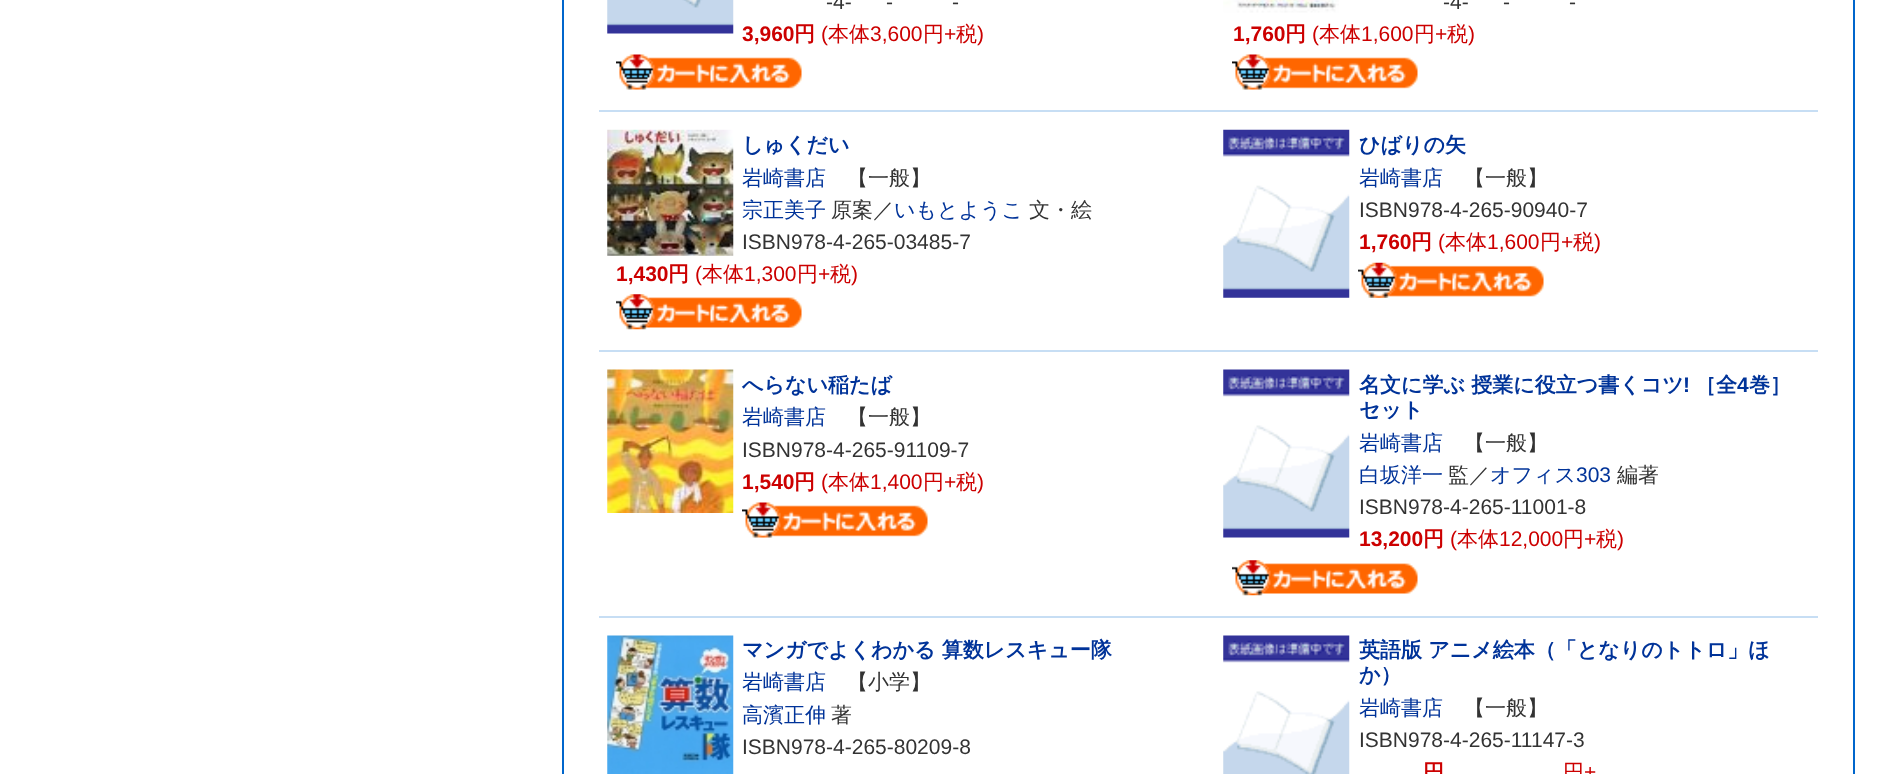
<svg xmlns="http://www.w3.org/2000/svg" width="1889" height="774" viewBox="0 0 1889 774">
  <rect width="100%" height="100%" fill="#fff"/>
  <path d="M563 -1h1291v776H563z" fill="none" stroke="#06c" stroke-width="2"/>
  <image x="607" y="0" width="127" height="34" href="img/1.png"/>
  <image x="616" y="54" width="186" height="36" href="img/2.png"/>
  <image x="1223" y="0" width="116" height="13" href="img/3.png"/>
  <image x="1232" y="54" width="186" height="36" href="img/2.png"/>
  <path d="M599 110h1219v2H599z" fill="#c7def4"/>
  <image x="607" y="129" width="127" height="127" href="img/4.png"/>
  <image x="616" y="294" width="186" height="36" href="img/5.png"/>
  <image x="1223" y="129" width="127" height="169" href="img/6.png"/>
  <image x="1358" y="262" width="186" height="36" href="img/7.png"/>
  <path d="M599 350h1219v2H599z" fill="#c7def4"/>
  <image x="607" y="369" width="127" height="144" href="img/8.png"/>
  <image x="742" y="502" width="186" height="36" href="img/9.png"/>
  <image x="1223" y="369" width="127" height="169" href="img/10.png"/>
  <image x="1232" y="560" width="186" height="36" href="img/5.png"/>
  <path d="M599 616h1219v2H599z" fill="#c7def4"/>
  <image x="607" y="635" width="127" height="139" href="img/11.png"/>
  <image x="1223" y="635" width="127" height="139" href="img/12.png"/>
  <g font-family="Liberation Sans" font-size="21" fill="#333">
    <text x="826" y="9">-4-</text>
    <text x="886" y="9">-</text>
    <text x="952" y="9">-</text>
  </g>
  <text x="742" y="41" font-family="Liberation Sans" font-size="21" font-weight="bold" fill="#c00">3,960</text>
  <text x="794" y="41" font-family="WenQuanYi Zen Hei" font-size="21" font-weight="bold" fill="#c00">円</text>
  <text x="821" y="41" font-family="Liberation Sans" font-size="21" fill="#c00">(</text>
  <text x="828" y="41" font-family="WenQuanYi Zen Hei" font-size="21" font-weight="500" fill="#c00">本体</text>
  <text x="870" y="41" font-family="Liberation Sans" font-size="21" fill="#c00">3,600</text>
  <text x="923" y="41" font-family="WenQuanYi Zen Hei" font-size="21" font-weight="500" fill="#c00">円</text>
  <text x="944" y="41" font-family="Liberation Sans" font-size="21" fill="#c00">+</text>
  <text x="956" y="41" font-family="WenQuanYi Zen Hei" font-size="21" font-weight="500" fill="#c00">税</text>
  <text x="977" y="41" font-family="Liberation Sans" font-size="21" fill="#c00">)</text>
  <g font-family="Liberation Sans" font-size="21" fill="#333">
    <text x="1443" y="9">-4-</text>
    <text x="1503" y="9">-</text>
    <text x="1569" y="9">-</text>
  </g>
  <text x="1233" y="41" font-family="Liberation Sans" font-size="21" font-weight="bold" fill="#c00">1,760</text>
  <text x="1285" y="41" font-family="WenQuanYi Zen Hei" font-size="21" font-weight="bold" fill="#c00">円</text>
  <text x="1312" y="41" font-family="Liberation Sans" font-size="21" fill="#c00">(</text>
  <text x="1319" y="41" font-family="WenQuanYi Zen Hei" font-size="21" font-weight="500" fill="#c00">本体</text>
  <text x="1361" y="41" font-family="Liberation Sans" font-size="21" fill="#c00">1,600</text>
  <text x="1414" y="41" font-family="WenQuanYi Zen Hei" font-size="21" font-weight="500" fill="#c00">円</text>
  <text x="1435" y="41" font-family="Liberation Sans" font-size="21" fill="#c00">+</text>
  <text x="1447" y="41" font-family="WenQuanYi Zen Hei" font-size="21" font-weight="500" fill="#c00">税</text>
  <text x="1468" y="41" font-family="Liberation Sans" font-size="21" fill="#c00">)</text>
  <text x="742" y="152" font-family="WenQuanYi Zen Hei" font-size="21" font-weight="bold" fill="#039">しゅくだい</text>
  <text x="742" y="185" font-family="WenQuanYi Zen Hei" font-size="21" font-weight="500" fill="#039">岩崎書店</text>
  <text x="847" y="185" font-family="WenQuanYi Zen Hei" font-size="21" font-weight="500" fill="#333">【一般】</text>
  <text x="742" y="217" font-family="WenQuanYi Zen Hei" font-size="21" font-weight="500" fill="#039">宗正美子</text>
  <text x="831" y="217" font-family="WenQuanYi Zen Hei" font-size="21" font-weight="500" fill="#333">原案／</text>
  <text x="894" y="217" font-family="WenQuanYi Zen Hei" font-size="21" font-weight="500" fill="#039">いもとようこ</text>
  <text x="1029" y="217" font-family="WenQuanYi Zen Hei" font-size="21" font-weight="500" fill="#333">文・絵</text>
  <text x="742" y="249" font-family="Liberation Sans" font-size="21" fill="#333">ISBN978-4-265-03485-7</text>
  <text x="616" y="281" font-family="Liberation Sans" font-size="21" font-weight="bold" fill="#c00">1,430</text>
  <text x="668" y="281" font-family="WenQuanYi Zen Hei" font-size="21" font-weight="bold" fill="#c00">円</text>
  <text x="695" y="281" font-family="Liberation Sans" font-size="21" fill="#c00">(</text>
  <text x="702" y="281" font-family="WenQuanYi Zen Hei" font-size="21" font-weight="500" fill="#c00">本体</text>
  <text x="744" y="281" font-family="Liberation Sans" font-size="21" fill="#c00">1,300</text>
  <text x="797" y="281" font-family="WenQuanYi Zen Hei" font-size="21" font-weight="500" fill="#c00">円</text>
  <text x="818" y="281" font-family="Liberation Sans" font-size="21" fill="#c00">+</text>
  <text x="830" y="281" font-family="WenQuanYi Zen Hei" font-size="21" font-weight="500" fill="#c00">税</text>
  <text x="851" y="281" font-family="Liberation Sans" font-size="21" fill="#c00">)</text>
  <text x="1359" y="152" font-family="WenQuanYi Zen Hei" font-size="21" font-weight="bold" fill="#039">ひばりの矢</text>
  <text x="1359" y="185" font-family="WenQuanYi Zen Hei" font-size="21" font-weight="500" fill="#039">岩崎書店</text>
  <text x="1464" y="185" font-family="WenQuanYi Zen Hei" font-size="21" font-weight="500" fill="#333">【一般】</text>
  <text x="1359" y="217" font-family="Liberation Sans" font-size="21" fill="#333">ISBN978-4-265-90940-7</text>
  <text x="1359" y="249" font-family="Liberation Sans" font-size="21" font-weight="bold" fill="#c00">1,760</text>
  <text x="1411" y="249" font-family="WenQuanYi Zen Hei" font-size="21" font-weight="bold" fill="#c00">円</text>
  <text x="1438" y="249" font-family="Liberation Sans" font-size="21" fill="#c00">(</text>
  <text x="1445" y="249" font-family="WenQuanYi Zen Hei" font-size="21" font-weight="500" fill="#c00">本体</text>
  <text x="1487" y="249" font-family="Liberation Sans" font-size="21" fill="#c00">1,600</text>
  <text x="1540" y="249" font-family="WenQuanYi Zen Hei" font-size="21" font-weight="500" fill="#c00">円</text>
  <text x="1561" y="249" font-family="Liberation Sans" font-size="21" fill="#c00">+</text>
  <text x="1573" y="249" font-family="WenQuanYi Zen Hei" font-size="21" font-weight="500" fill="#c00">税</text>
  <text x="1594" y="249" font-family="Liberation Sans" font-size="21" fill="#c00">)</text>
  <text x="742" y="392" font-family="WenQuanYi Zen Hei" font-size="21" font-weight="bold" fill="#039">へらない稲たば</text>
  <text x="742" y="424" font-family="WenQuanYi Zen Hei" font-size="21" font-weight="500" fill="#039">岩崎書店</text>
  <text x="847" y="424" font-family="WenQuanYi Zen Hei" font-size="21" font-weight="500" fill="#333">【一般】</text>
  <text x="742" y="457" font-family="Liberation Sans" font-size="21" fill="#333">ISBN978-4-265-91109-7</text>
  <text x="742" y="489" font-family="Liberation Sans" font-size="21" font-weight="bold" fill="#c00">1,540</text>
  <text x="794" y="489" font-family="WenQuanYi Zen Hei" font-size="21" font-weight="bold" fill="#c00">円</text>
  <text x="821" y="489" font-family="Liberation Sans" font-size="21" fill="#c00">(</text>
  <text x="828" y="489" font-family="WenQuanYi Zen Hei" font-size="21" font-weight="500" fill="#c00">本体</text>
  <text x="870" y="489" font-family="Liberation Sans" font-size="21" fill="#c00">1,400</text>
  <text x="923" y="489" font-family="WenQuanYi Zen Hei" font-size="21" font-weight="500" fill="#c00">円</text>
  <text x="944" y="489" font-family="Liberation Sans" font-size="21" fill="#c00">+</text>
  <text x="956" y="489" font-family="WenQuanYi Zen Hei" font-size="21" font-weight="500" fill="#c00">税</text>
  <text x="977" y="489" font-family="Liberation Sans" font-size="21" fill="#c00">)</text>
  <text x="1359" y="392" font-family="WenQuanYi Zen Hei" font-size="21" font-weight="bold" fill="#039">名文に学ぶ 授業に役立つ書くコツ</text>
  <text x="1683" y="392" font-family="Liberation Sans" font-size="21" font-weight="bold" fill="#039">!</text>
  <text x="1695" y="392" font-family="WenQuanYi Zen Hei" font-size="21" font-weight="bold" fill="#039">［全</text>
  <text x="1737" y="392" font-family="Liberation Sans" font-size="21" font-weight="bold" fill="#039">4</text>
  <g font-family="WenQuanYi Zen Hei" font-size="21" font-weight="bold" fill="#039">
    <text x="1749" y="392">巻］</text>
    <text x="1359" y="417">セット</text>
  </g>
  <text x="1359" y="450" font-family="WenQuanYi Zen Hei" font-size="21" font-weight="500" fill="#039">岩崎書店</text>
  <text x="1464" y="450" font-family="WenQuanYi Zen Hei" font-size="21" font-weight="500" fill="#333">【一般】</text>
  <text x="1359" y="482" font-family="WenQuanYi Zen Hei" font-size="21" font-weight="500" fill="#039">白坂洋一</text>
  <text x="1448" y="482" font-family="WenQuanYi Zen Hei" font-size="21" font-weight="500" fill="#333">監／</text>
  <text x="1490" y="482" font-family="WenQuanYi Zen Hei" font-size="21" font-weight="500" fill="#039">オフィス</text>
  <text x="1576" y="482" font-family="Liberation Sans" font-size="21" fill="#039">303</text>
  <text x="1617" y="482" font-family="WenQuanYi Zen Hei" font-size="21" font-weight="500" fill="#333">編著</text>
  <text x="1359" y="514" font-family="Liberation Sans" font-size="21" fill="#333">ISBN978-4-265-11001-8</text>
  <text x="1359" y="546" font-family="Liberation Sans" font-size="21" font-weight="bold" fill="#c00">13,200</text>
  <text x="1423" y="546" font-family="WenQuanYi Zen Hei" font-size="21" font-weight="bold" fill="#c00">円</text>
  <text x="1450" y="546" font-family="Liberation Sans" font-size="21" fill="#c00">(</text>
  <text x="1457" y="546" font-family="WenQuanYi Zen Hei" font-size="21" font-weight="500" fill="#c00">本体</text>
  <text x="1499" y="546" font-family="Liberation Sans" font-size="21" fill="#c00">12,000</text>
  <text x="1563" y="546" font-family="WenQuanYi Zen Hei" font-size="21" font-weight="500" fill="#c00">円</text>
  <text x="1584" y="546" font-family="Liberation Sans" font-size="21" fill="#c00">+</text>
  <text x="1596" y="546" font-family="WenQuanYi Zen Hei" font-size="21" font-weight="500" fill="#c00">税</text>
  <text x="1617" y="546" font-family="Liberation Sans" font-size="21" fill="#c00">)</text>
  <text x="742" y="657" font-family="WenQuanYi Zen Hei" font-size="21" font-weight="bold" fill="#039">マンガでよくわかる 算数レスキュー隊</text>
  <text x="742" y="689" font-family="WenQuanYi Zen Hei" font-size="21" font-weight="500" fill="#039">岩崎書店</text>
  <text x="847" y="689" font-family="WenQuanYi Zen Hei" font-size="21" font-weight="500" fill="#333">【小学】</text>
  <text x="742" y="722" font-family="WenQuanYi Zen Hei" font-size="21" font-weight="500" fill="#039">高濱正伸</text>
  <text x="831" y="722" font-family="WenQuanYi Zen Hei" font-size="21" font-weight="500" fill="#333">著</text>
  <text x="742" y="754" font-family="Liberation Sans" font-size="21" fill="#333">ISBN978-4-265-80209-8</text>
  <g font-family="WenQuanYi Zen Hei" font-size="21" font-weight="bold" fill="#039">
    <text x="1359" y="657">英語版 アニメ絵本（「となりのトトロ」ほ</text>
    <text x="1359" y="682">か）</text>
  </g>
  <text x="1359" y="715" font-family="WenQuanYi Zen Hei" font-size="21" font-weight="500" fill="#039">岩崎書店</text>
  <text x="1464" y="715" font-family="WenQuanYi Zen Hei" font-size="21" font-weight="500" fill="#333">【一般】</text>
  <text x="1359" y="747" font-family="Liberation Sans" font-size="21" fill="#333">ISBN978-4-265-11147-3</text>
  <text x="1423" y="779" font-family="WenQuanYi Zen Hei" font-size="21" font-weight="bold" fill="#c00">円</text>
  <text x="1563" y="779" font-family="WenQuanYi Zen Hei" font-size="21" font-weight="500" fill="#c00">円</text>
  <text x="1584" y="779" font-family="Liberation Sans" font-size="21" fill="#c00">+</text>
</svg>
